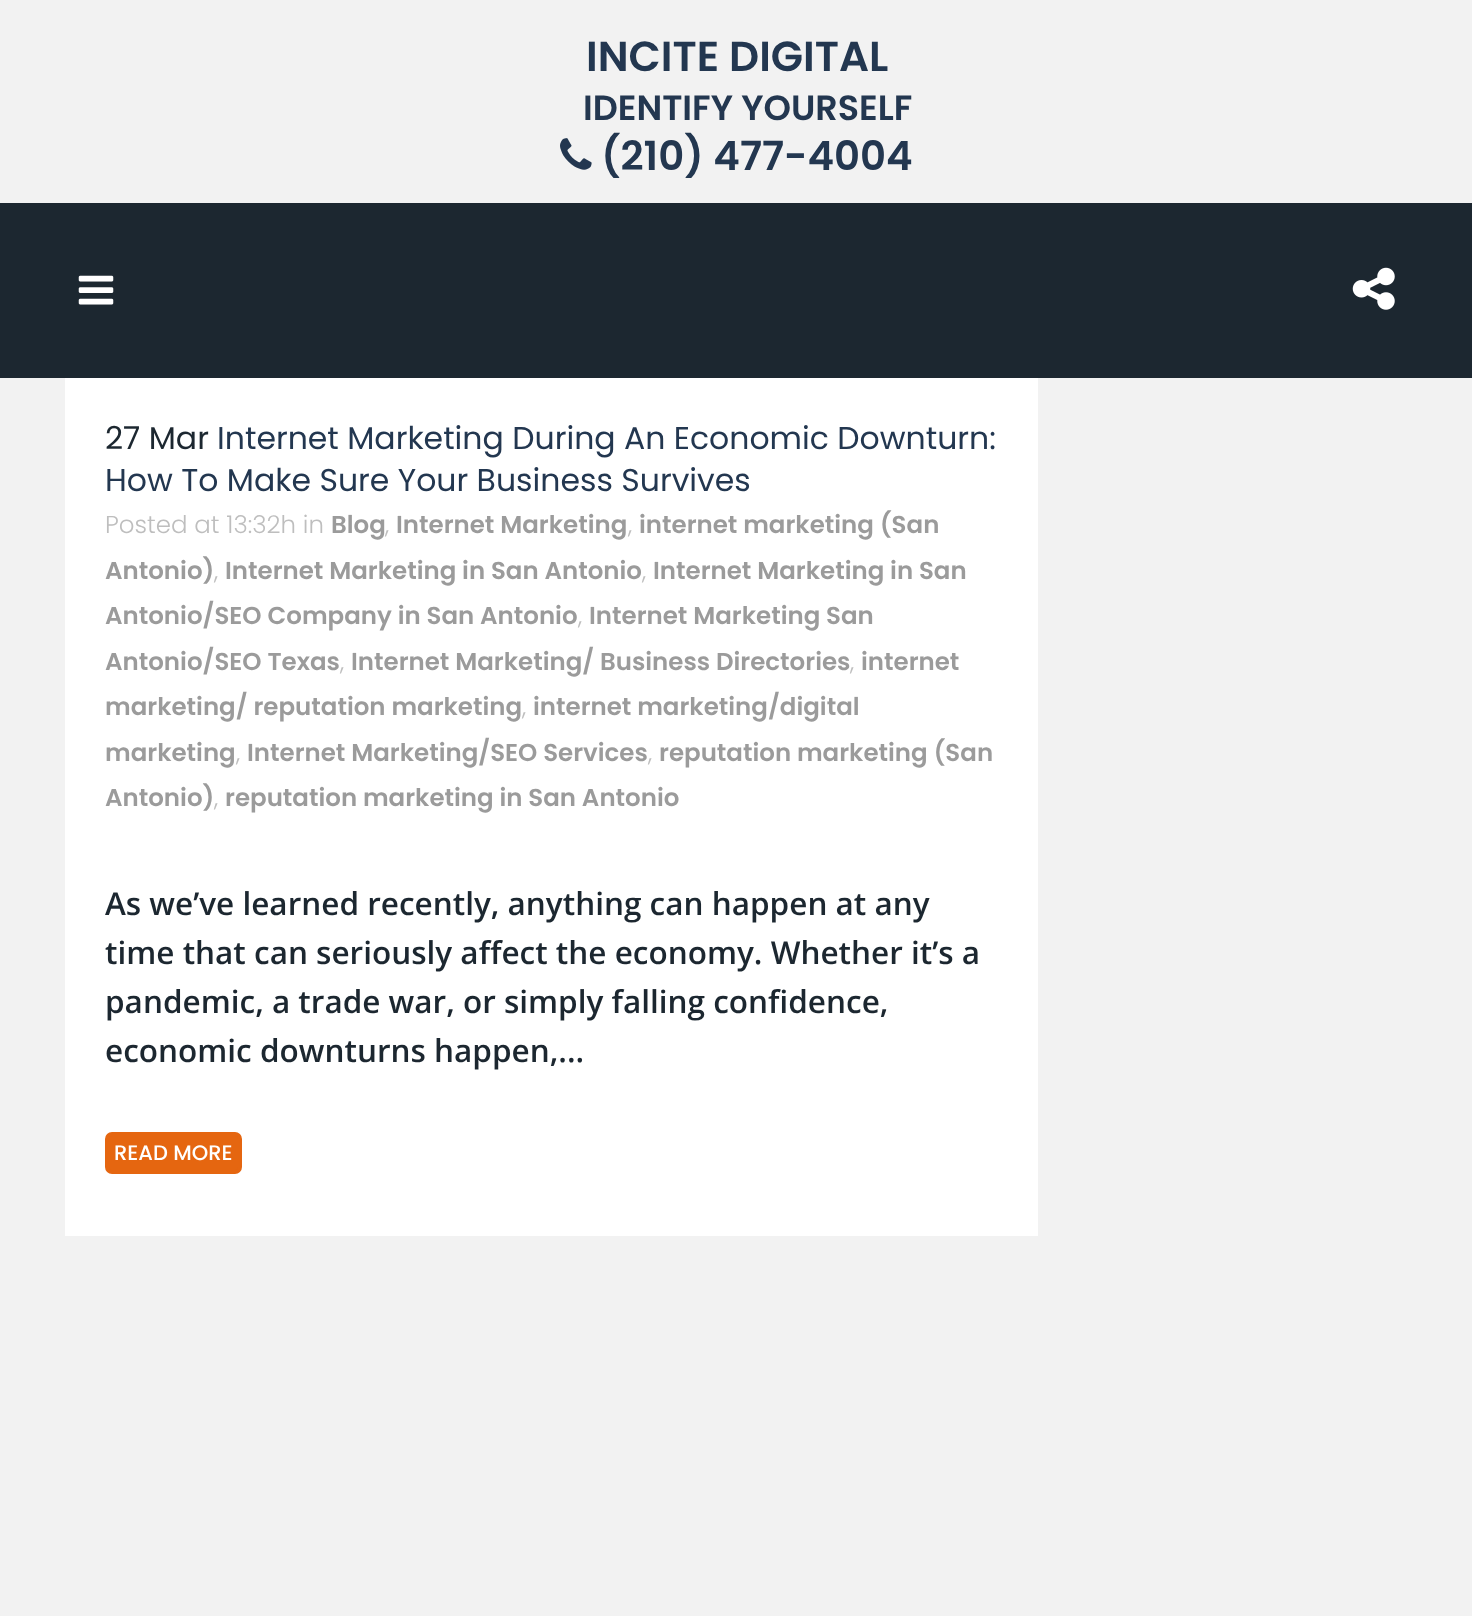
<svg xmlns="http://www.w3.org/2000/svg" width="1472" height="1616" viewBox="0 0 1472 1616">
  <rect width="100%" height="100%" fill="#f2f2f2"/>
  <image x="560" y="138" width="32" height="32" href="img/1.png"/>
  <path d="M0 203h1472v175H0z" fill="#1c2730"/>
  <image x="78" y="275" width="36" height="30" href="img/2.png"/>
  <image x="1352" y="267" width="43" height="43" href="img/3.png"/>
  <path d="M65 378h973v858H65z" fill="#fff"/>
  <rect x="107" y="1134" width="133" height="38" rx="5" fill="#e56610" stroke="#e56610" stroke-width="4"/>
  <text x="586" y="71" font-family="Poppins" font-size="42" font-weight="600" fill="#233750">INCITE DIGITAL</text>
  <text x="583" y="120" font-family="Poppins" font-size="35" font-weight="600" fill="#233750">IDENTIFY YOURSELF</text>
  <text x="601" y="170" font-family="Poppins" font-size="40.25" font-weight="600" fill="#233750">(210) 477-4004</text>
  <text x="105" y="449" font-family="Poppins" font-size="31.5" fill="#1c2730">27 Mar</text>
  <g font-family="Poppins" font-size="31.5" fill="#233750">
    <text x="217" y="449">Internet Marketing During An Economic Downturn:</text>
    <text x="105" y="491">How To Make Sure Your Business Survives</text>
  </g>
  <text x="105" y="533" font-family="Poppins" font-size="24.5" font-weight="300" fill="#bebebe">Posted at 13:32h in</text>
  <text x="331" y="533" font-family="Poppins" font-size="24.5" font-weight="600" fill="#9b9b9b">Blog</text>
  <text x="385" y="533" font-family="Poppins" font-size="24.5" font-weight="300" fill="#bebebe">,</text>
  <text x="396" y="533" font-family="Poppins" font-size="24.5" font-weight="600" fill="#9b9b9b">Internet Marketing</text>
  <text x="628" y="533" font-family="Poppins" font-size="24.5" font-weight="300" fill="#bebebe">,</text>
  <g font-family="Poppins" font-size="24.5" font-weight="600" fill="#9b9b9b">
    <text x="639" y="533">internet marketing (San</text>
    <text x="105" y="579">Antonio)</text>
  </g>
  <text x="214" y="579" font-family="Poppins" font-size="24.5" font-weight="300" fill="#bebebe">,</text>
  <text x="225" y="579" font-family="Poppins" font-size="24.5" font-weight="600" fill="#9b9b9b">Internet Marketing in San Antonio</text>
  <text x="642" y="579" font-family="Poppins" font-size="24.5" font-weight="300" fill="#bebebe">,</text>
  <g font-family="Poppins" font-size="24.5" font-weight="600" fill="#9b9b9b">
    <text x="653" y="579">Internet Marketing in San</text>
    <text x="105" y="624">Antonio/SEO Company in San Antonio</text>
  </g>
  <text x="578" y="624" font-family="Poppins" font-size="24.5" font-weight="300" fill="#bebebe">,</text>
  <g font-family="Poppins" font-size="24.5" font-weight="600" fill="#9b9b9b">
    <text x="589" y="624">Internet Marketing San</text>
    <text x="105" y="670">Antonio/SEO Texas</text>
  </g>
  <text x="340" y="670" font-family="Poppins" font-size="24.5" font-weight="300" fill="#bebebe">,</text>
  <text x="351" y="670" font-family="Poppins" font-size="24.5" font-weight="600" fill="#9b9b9b">Internet Marketing/ Business Directories</text>
  <text x="850" y="670" font-family="Poppins" font-size="24.5" font-weight="300" fill="#bebebe">,</text>
  <g font-family="Poppins" font-size="24.5" font-weight="600" fill="#9b9b9b">
    <text x="861" y="670">internet</text>
    <text x="105" y="715">marketing/ reputation marketing</text>
  </g>
  <text x="522" y="715" font-family="Poppins" font-size="24.5" font-weight="300" fill="#bebebe">,</text>
  <g font-family="Poppins" font-size="24.5" font-weight="600" fill="#9b9b9b">
    <text x="533" y="715">internet marketing/digital</text>
    <text x="105" y="761">marketing</text>
  </g>
  <text x="236" y="761" font-family="Poppins" font-size="24.5" font-weight="300" fill="#bebebe">,</text>
  <text x="247" y="761" font-family="Poppins" font-size="24.5" font-weight="600" fill="#9b9b9b">Internet Marketing/SEO Services</text>
  <text x="648" y="761" font-family="Poppins" font-size="24.5" font-weight="300" fill="#bebebe">,</text>
  <g font-family="Poppins" font-size="24.5" font-weight="600" fill="#9b9b9b">
    <text x="659" y="761">reputation marketing (San</text>
    <text x="105" y="806">Antonio)</text>
  </g>
  <text x="214" y="806" font-family="Poppins" font-size="24.5" font-weight="300" fill="#bebebe">,</text>
  <text x="225" y="806" font-family="Poppins" font-size="24.5" font-weight="600" fill="#9b9b9b">reputation marketing in San Antonio</text>
  <g font-family="Open Sans" font-size="31.5" font-weight="600" fill="#1c2730">
    <text x="105" y="915">As we’ve learned recently, anything can happen at any</text>
    <text x="105" y="964">time that can seriously affect the economy. Whether it’s a</text>
    <text x="105" y="1013">pandemic, a trade war, or simply falling confidence,</text>
    <text x="105" y="1062">economic downturns happen,...</text>
  </g>
  <text x="114" y="1160" font-family="Poppins" font-size="21" font-weight="500" fill="#fff">READ MORE</text>
</svg>
